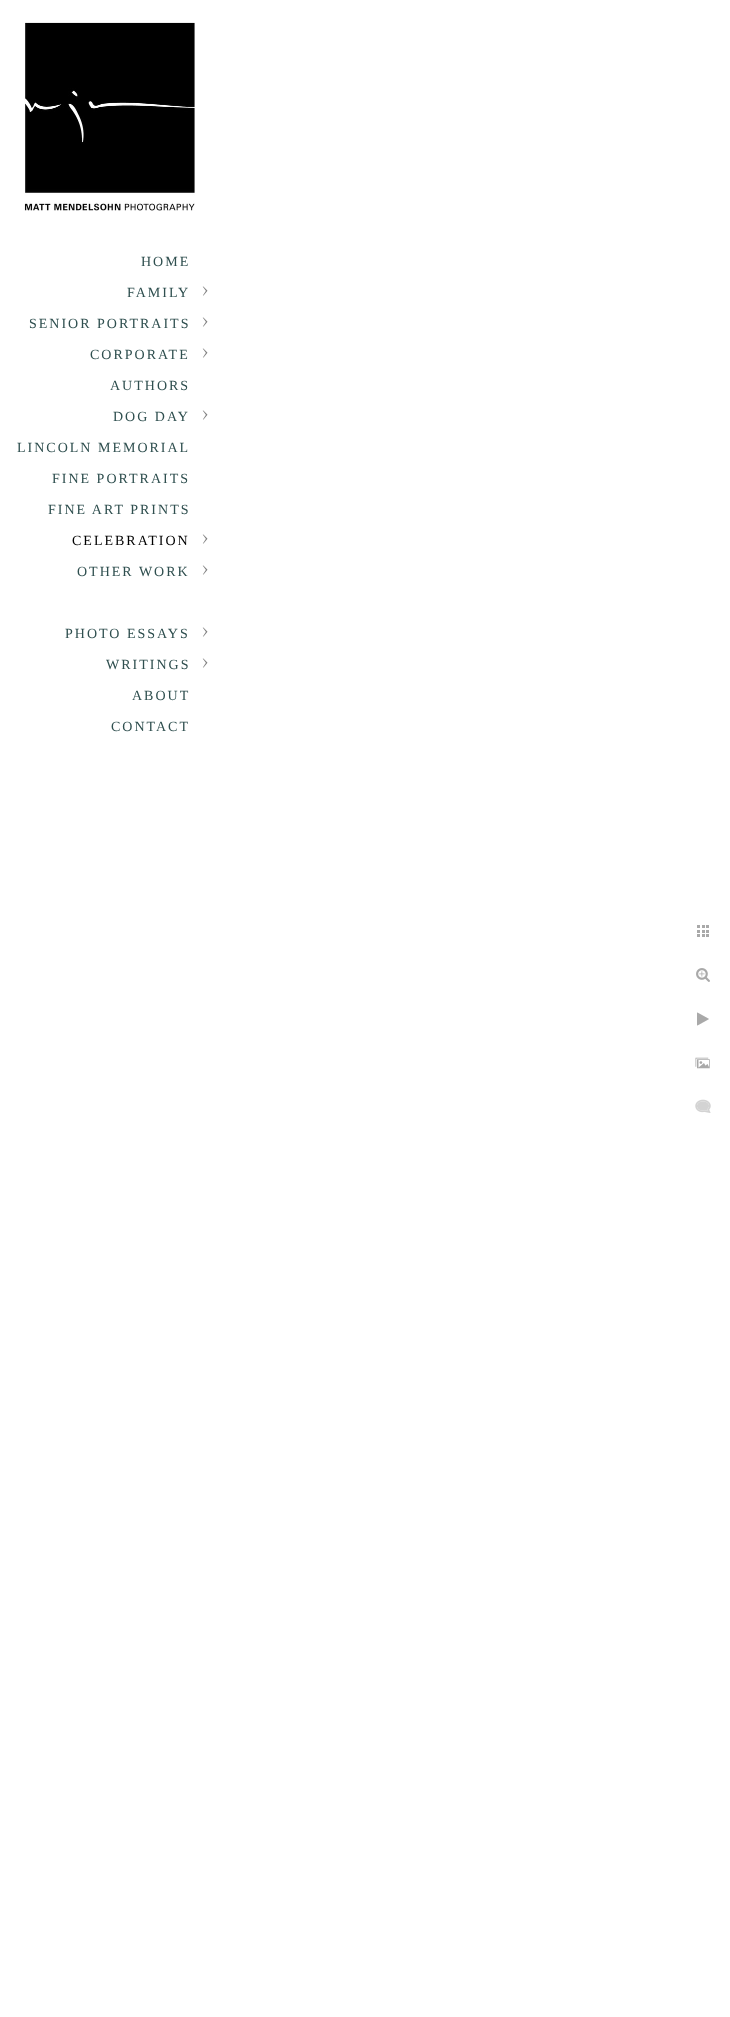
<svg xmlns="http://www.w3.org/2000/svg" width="730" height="2017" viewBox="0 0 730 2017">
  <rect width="100%" height="100%" fill="#fff"/>
  <image x="24" y="22" width="171" height="189" href="img/1.png"/>
  <image x="202" y="286" width="6" height="10" href="img/2.png"/>
  <image x="202" y="317" width="6" height="10" href="img/2.png"/>
  <image x="202" y="348" width="6" height="10" href="img/2.png"/>
  <image x="202" y="410" width="6" height="10" href="img/2.png"/>
  <image x="202" y="534" width="6" height="10" href="img/2.png"/>
  <image x="202" y="565" width="6" height="10" href="img/2.png"/>
  <image x="202" y="627" width="6" height="10" href="img/2.png"/>
  <image x="202" y="658" width="6" height="10" href="img/2.png"/>
  <image x="697" y="925" width="12" height="12" href="img/3.png"/>
  <image x="696" y="968" width="14" height="14" href="img/4.png"/>
  <image x="697" y="1012" width="12" height="14" href="img/5.png"/>
  <image x="695" y="1057" width="15" height="12" href="img/6.png"/>
  <image x="695" y="1099" width="16" height="14" href="img/7.png"/>
  <g font-family="Liberation Serif" font-size="14" letter-spacing="2" fill="#2f4f4f">
    <text x="141" y="266">HOME</text>
    <text x="127" y="297">FAMILY</text>
    <text x="29" y="328">SENIOR PORTRAITS</text>
    <text x="90" y="359">CORPORATE</text>
    <text x="110" y="390">AUTHORS</text>
    <text x="113" y="421">DOG DAY</text>
    <text x="17" y="452">LINCOLN MEMORIAL</text>
    <text x="52" y="483">FINE PORTRAITS</text>
    <text x="48" y="514">FINE ART PRINTS</text>
  </g>
  <text x="72" y="545" font-family="Liberation Serif" font-size="14" letter-spacing="2" fill="#000">CELEBRATION</text>
  <g font-family="Liberation Serif" font-size="14" letter-spacing="2" fill="#2f4f4f">
    <text x="77" y="576">OTHER WORK</text>
    <text x="65" y="638">PHOTO ESSAYS</text>
    <text x="106" y="669">WRITINGS</text>
    <text x="132" y="700">ABOUT</text>
    <text x="111" y="731">CONTACT</text>
  </g>
</svg>
